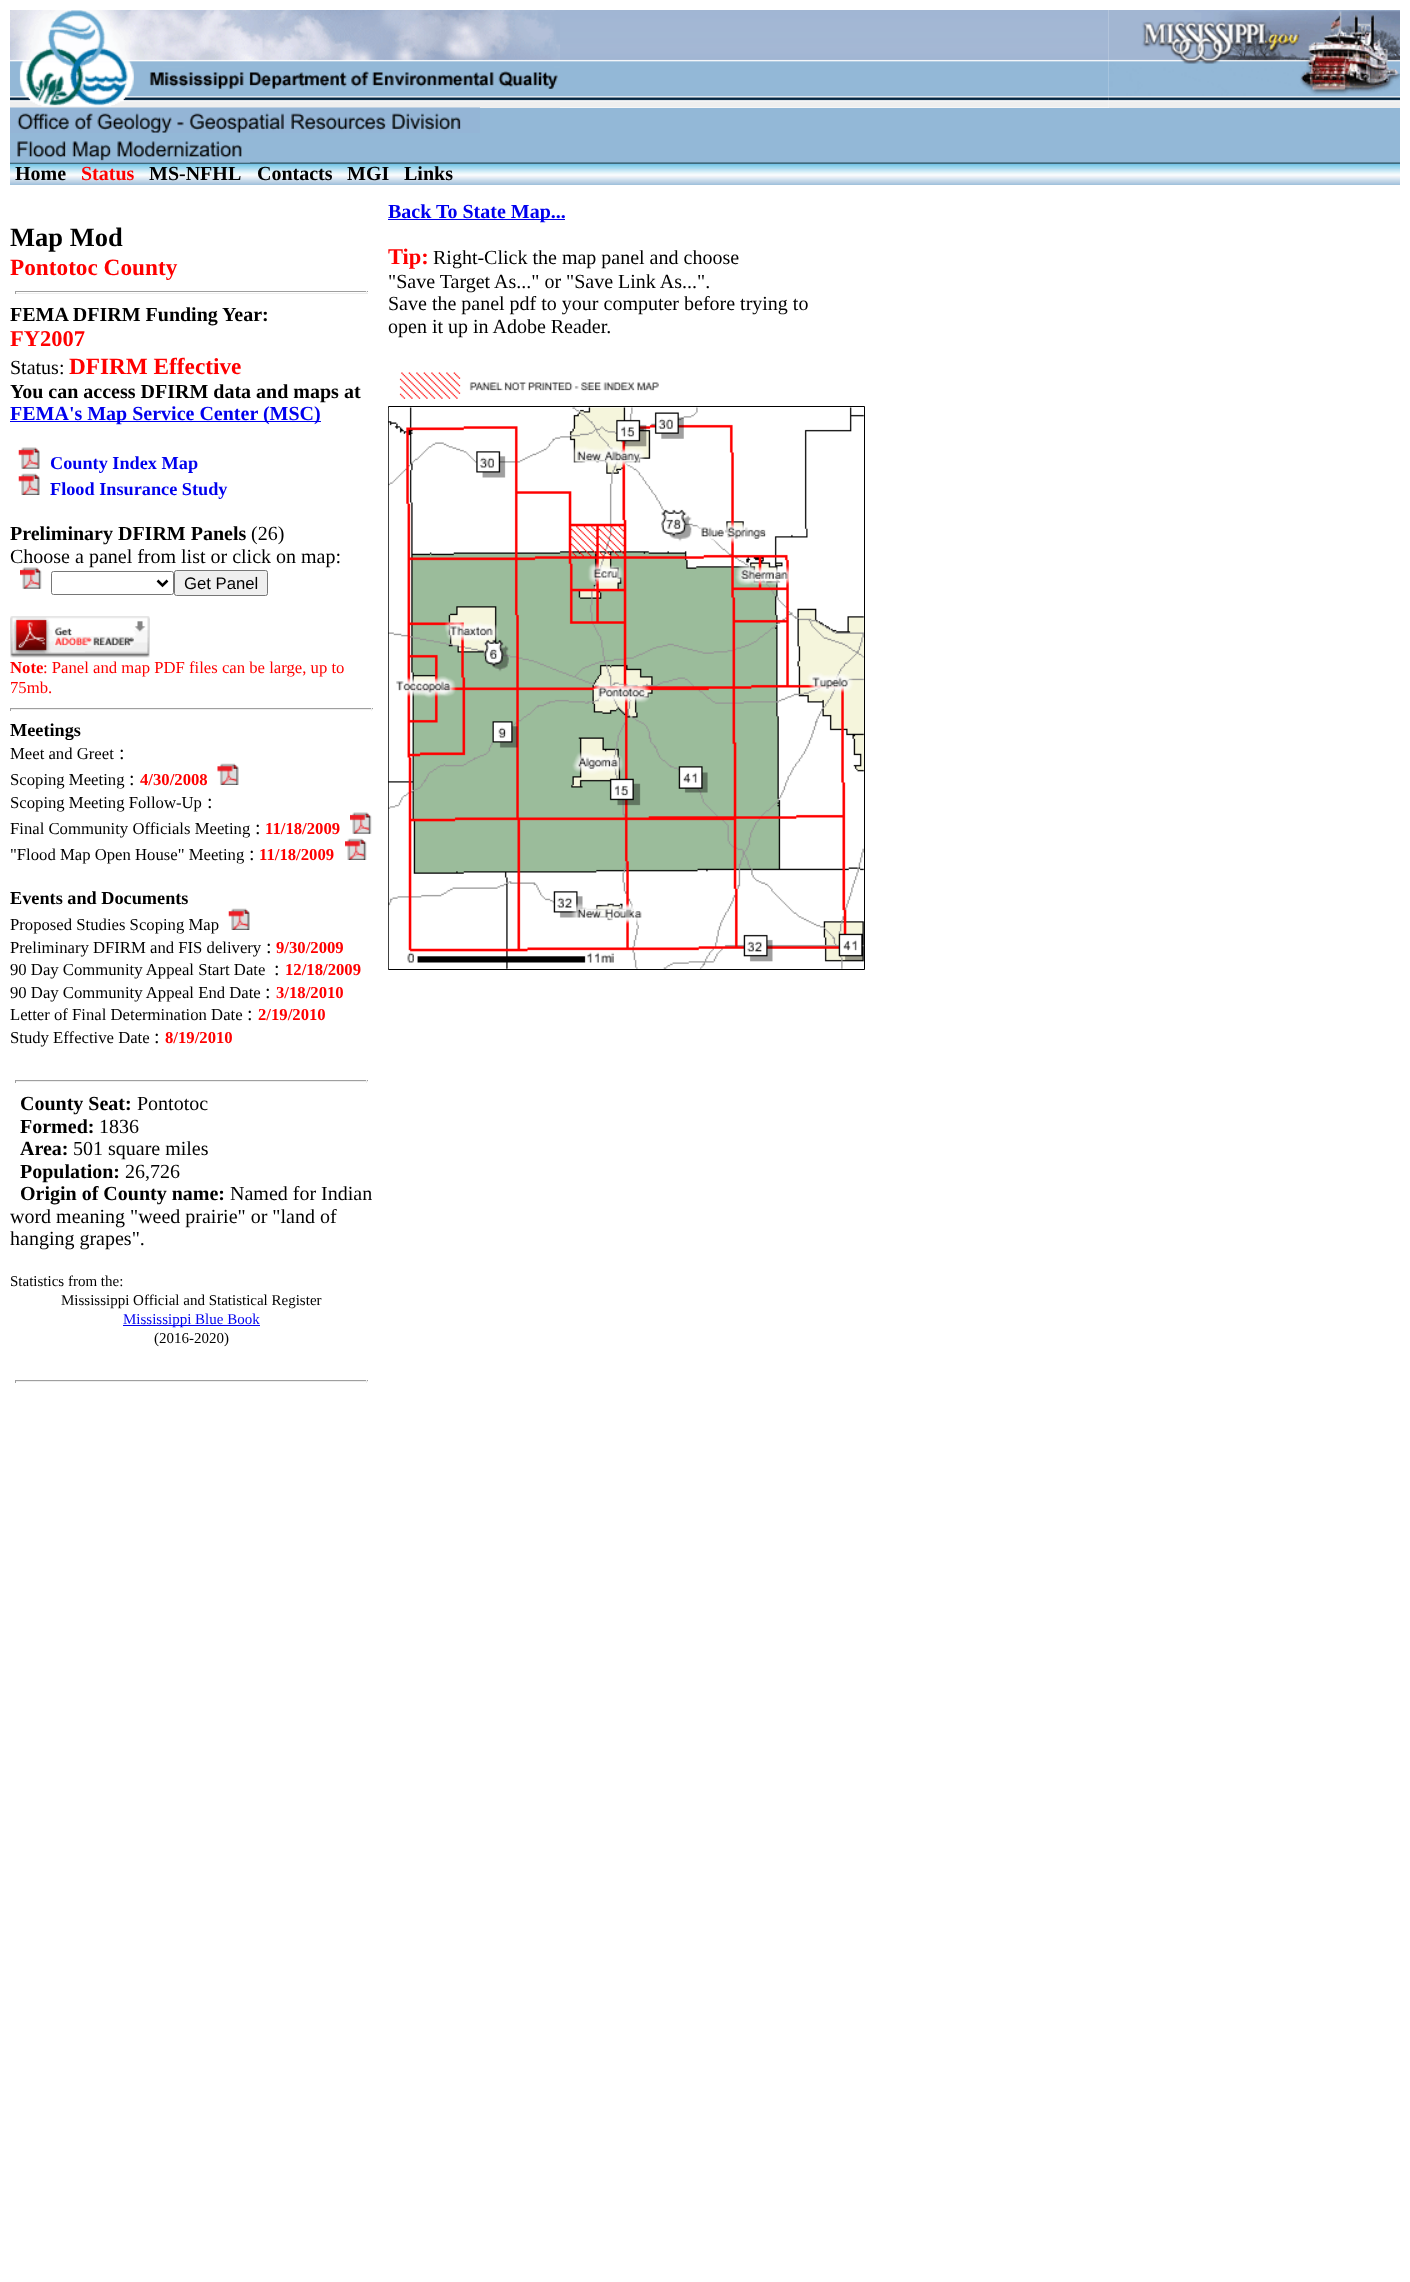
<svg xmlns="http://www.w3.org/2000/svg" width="1410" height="2282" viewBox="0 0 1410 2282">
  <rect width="100%" height="100%" fill="#fff"/>
  <path d="M10 107h550v1H10z" fill="#efefef"/>
  <image x="10" y="10" width="550" height="97" href="img/1.png"/>
  <image x="560" y="10" width="549" height="98" href="img/2.png"/>
  <path d="M1109 102h291v6H1109z" fill="#efefef"/>
  <image x="1108" y="10" width="292" height="92" href="img/3.png"/>
  <path d="M10 108h1390v55H10z" fill="#93b8d7"/>
  <image x="10" y="107" width="470" height="26" href="img/4.png"/>
  <image x="10" y="162" width="1390" height="23" href="img/6.png"/>
  <image x="10" y="141" width="240" height="22" href="img/5.png"/>
  <path d="M388 219h177v1H388z" fill="#00e"/>
  <path d="M15 291h353v1H15z" fill="#9f9f9f"/>
  <path d="M366 291h1v3H366z" fill="#eee"/>
  <path d="M15 293h353v1H15z" fill="#eee"/>
  <path d="M15 291h1v3H15z" fill="#9f9f9f"/>
  <path d="M10 421h311v1H10z" fill="#00e"/>
  <image x="18" y="447" width="22" height="22" href="img/7.png"/>
  <image x="18" y="473" width="22" height="22" href="img/8.png"/>
  <rect x="51.5" y="571.5" width="122" height="23" rx="2" fill="none" stroke="#767676"/>
  <path d="M157.5 580.5L162.5 585.5L167.5 580.5" fill="none" stroke="#000" stroke-width="2.5"/>
  <rect x="174.5" y="570.5" width="93" height="25" rx="2" fill="#efefef" stroke="#767676"/>
  <image x="10" y="616" width="140" height="42" href="img/10.png"/>
  <path d="M10 708h363v1H10z" fill="#9f9f9f"/>
  <path d="M371 708h1v3H371z" fill="#eee"/>
  <path d="M10 709h363v1H10z" fill="#eee"/>
  <path d="M10 708h1v3H10z" fill="#9f9f9f"/>
  <image x="217" y="763" width="22" height="22" href="img/11.png"/>
  <image x="350" y="812" width="22" height="22" href="img/12.png"/>
  <image x="345" y="838" width="22" height="22" href="img/13.png"/>
  <image x="228" y="908" width="22" height="22" href="img/8.png"/>
  <path d="M15 1080h353v1H15z" fill="#9f9f9f"/>
  <path d="M366 1080h1v3H366z" fill="#eee"/>
  <path d="M15 1081h353v1H15z" fill="#eee"/>
  <path d="M15 1080h1v3H15z" fill="#9f9f9f"/>
  <path d="M123 1325h137v1H123z" fill="#00e"/>
  <path d="M15 1380h353v1H15z" fill="#9f9f9f"/>
  <path d="M366 1380h1v3H366z" fill="#eee"/>
  <path d="M15 1381h353v1H15z" fill="#eee"/>
  <path d="M15 1380h1v3H15z" fill="#9f9f9f"/>
  <image x="399" y="372" width="260" height="27" href="img/14.png"/>
  <path d="M388.5 406.5h476v563H388.5z" fill="none" stroke="#000"/>
  <image x="388" y="407" width="476" height="562" href="img/15.png"/>
  <text x="15" y="180" font-family="Liberation Serif" font-size="20" font-weight="bold" fill="#000">Home</text>
  <text x="81" y="180" font-family="Liberation Serif" font-size="20" font-weight="bold" fill="#f00">Status</text>
  <g font-family="Liberation Serif" font-size="20" font-weight="bold" fill="#000">
    <text x="149" y="180">MS-NFHL</text>
    <text x="257" y="180">Contacts</text>
    <text x="347" y="180">MGI</text>
    <text x="404" y="180">Links</text>
  </g>
  <text x="388" y="218" font-family="Liberation Serif" font-size="20" font-weight="bold" fill="#00e">Back To State Map...</text>
  <text x="10" y="246" font-family="Liberation Serif" font-size="26.5" font-weight="bold" fill="#000">Map Mod</text>
  <text x="10" y="275" font-family="Liberation Serif" font-size="23.25" font-weight="bold" fill="#f00">Pontotoc County</text>
  <text x="10" y="321" font-family="Liberation Serif" font-size="20" font-weight="bold" fill="#000">FEMA DFIRM Funding Year:</text>
  <text x="10" y="346" font-family="Liberation Serif" font-size="22.5" font-weight="bold" fill="#f00">FY2007</text>
  <text x="10" y="374" font-family="Liberation Serif" font-size="20" fill="#000">Status:</text>
  <text x="69" y="374" font-family="Liberation Serif" font-size="23.25" font-weight="bold" fill="#f00">DFIRM Effective</text>
  <text x="10" y="398" font-family="Liberation Serif" font-size="20" font-weight="bold" fill="#000">You can access DFIRM data and maps at</text>
  <text x="10" y="420" font-family="Liberation Serif" font-size="20" font-weight="bold" fill="#00e">FEMA's Map Service Center (MSC)</text>
  <g font-family="Liberation Serif" font-size="18.25" font-weight="bold" fill="#00e">
    <text x="50" y="469">County Index Map</text>
    <text x="50" y="495">Flood Insurance Study</text>
  </g>
  <text x="10" y="540" font-family="Liberation Serif" font-size="20" font-weight="bold" fill="#000">Preliminary DFIRM Panels</text>
  <g font-family="Liberation Serif" font-size="20" fill="#000">
    <text x="251" y="540">(26)</text>
    <text x="10" y="563">Choose a panel from list or click on map:</text>
  </g>
  <image x="20" y="567" width="22" height="22" href="img/9.png"/>
  <text x="184" y="589" font-family="Liberation Sans" font-size="16.7" fill="#000">Get Panel</text>
  <text x="10" y="673" font-family="Liberation Serif" font-size="16.7" font-weight="bold" fill="#f00">Note</text>
  <g font-family="Liberation Serif" font-size="16.7" fill="#f00">
    <text x="43" y="673">: Panel and map PDF files can be large, up to</text>
    <text x="10" y="693">75mb.</text>
  </g>
  <text x="10" y="736" font-family="Liberation Serif" font-size="18.25" font-weight="bold" fill="#000">Meetings</text>
  <text x="10" y="759" font-family="Liberation Serif" font-size="16.7" fill="#000">Meet and Greet</text>
  <text x="119" y="759" font-family="Liberation Serif" font-size="20" fill="#000">:</text>
  <text x="10" y="785" font-family="Liberation Serif" font-size="16.7" fill="#000">Scoping Meeting</text>
  <text x="129" y="785" font-family="Liberation Serif" font-size="20" fill="#000">:</text>
  <text x="140" y="785" font-family="Liberation Serif" font-size="16.7" font-weight="bold" fill="#f00">4/30/2008</text>
  <text x="10" y="808" font-family="Liberation Serif" font-size="16.7" fill="#000">Scoping Meeting Follow-Up</text>
  <text x="207" y="808" font-family="Liberation Serif" font-size="20" fill="#000">:</text>
  <text x="10" y="834" font-family="Liberation Serif" font-size="16.7" fill="#000">Final Community Officials Meeting</text>
  <text x="255" y="834" font-family="Liberation Serif" font-size="20" fill="#000">:</text>
  <text x="265" y="834" font-family="Liberation Serif" font-size="16.7" font-weight="bold" fill="#f00">11/18/2009</text>
  <text x="10" y="860" font-family="Liberation Serif" font-size="16.7" fill="#000">"Flood Map Open House" Meeting</text>
  <text x="249" y="860" font-family="Liberation Serif" font-size="20" fill="#000">:</text>
  <text x="259" y="860" font-family="Liberation Serif" font-size="16.7" font-weight="bold" fill="#f00">11/18/2009</text>
  <text x="10" y="904" font-family="Liberation Serif" font-size="18.25" font-weight="bold" fill="#000">Events and Documents</text>
  <g font-family="Liberation Serif" font-size="16.7" fill="#000">
    <text x="10" y="930">Proposed Studies Scoping Map</text>
    <text x="10" y="953">Preliminary DFIRM and FIS delivery</text>
  </g>
  <text x="266" y="953" font-family="Liberation Serif" font-size="20" fill="#000">:</text>
  <text x="276" y="953" font-family="Liberation Serif" font-size="16.7" font-weight="bold" fill="#f00">9/30/2009</text>
  <text x="10" y="975" font-family="Liberation Serif" font-size="16.7" fill="#000">90 Day Community Appeal Start Date</text>
  <text x="274" y="975" font-family="Liberation Serif" font-size="20" fill="#000">:</text>
  <text x="285" y="975" font-family="Liberation Serif" font-size="16.7" font-weight="bold" fill="#f00">12/18/2009</text>
  <text x="10" y="998" font-family="Liberation Serif" font-size="16.7" fill="#000">90 Day Community Appeal End Date</text>
  <text x="265" y="998" font-family="Liberation Serif" font-size="20" fill="#000">:</text>
  <text x="276" y="998" font-family="Liberation Serif" font-size="16.7" font-weight="bold" fill="#f00">3/18/2010</text>
  <text x="10" y="1020" font-family="Liberation Serif" font-size="16.7" fill="#000">Letter of Final Determination Date</text>
  <text x="247" y="1020" font-family="Liberation Serif" font-size="20" fill="#000">:</text>
  <text x="258" y="1020" font-family="Liberation Serif" font-size="16.7" font-weight="bold" fill="#f00">2/19/2010</text>
  <text x="10" y="1043" font-family="Liberation Serif" font-size="16.7" fill="#000">Study Effective Date</text>
  <text x="154" y="1043" font-family="Liberation Serif" font-size="20" fill="#000">:</text>
  <text x="165" y="1043" font-family="Liberation Serif" font-size="16.7" font-weight="bold" fill="#f00">8/19/2010</text>
  <text x="20" y="1110" font-family="Liberation Serif" font-size="20" font-weight="bold" fill="#000">County Seat:</text>
  <text x="137" y="1110" font-family="Liberation Serif" font-size="20" fill="#000">Pontotoc</text>
  <text x="20" y="1133" font-family="Liberation Serif" font-size="20" font-weight="bold" fill="#000">Formed:</text>
  <text x="99" y="1133" font-family="Liberation Serif" font-size="20" fill="#000">1836</text>
  <text x="20" y="1155" font-family="Liberation Serif" font-size="20" font-weight="bold" fill="#000">Area:</text>
  <text x="73" y="1155" font-family="Liberation Serif" font-size="20" fill="#000">501 square miles</text>
  <text x="20" y="1178" font-family="Liberation Serif" font-size="20" font-weight="bold" fill="#000">Population:</text>
  <text x="125" y="1178" font-family="Liberation Serif" font-size="20" fill="#000">26,726</text>
  <text x="20" y="1200" font-family="Liberation Serif" font-size="20" font-weight="bold" fill="#000">Origin of County name:</text>
  <g font-family="Liberation Serif" font-size="20" fill="#000">
    <text x="230" y="1200">Named for Indian</text>
    <text x="10" y="1223">word meaning "weed prairie" or "land of</text>
    <text x="10" y="1245">hanging grapes".</text>
  </g>
  <g font-family="Liberation Serif" font-size="15" fill="#000">
    <text x="10" y="1286">Statistics from the:</text>
    <text x="61" y="1305">Mississippi Official and Statistical Register</text>
  </g>
  <text x="123" y="1324" font-family="Liberation Serif" font-size="15" fill="#00e">Mississippi Blue Book</text>
  <text x="154" y="1343" font-family="Liberation Serif" font-size="15" fill="#000">(2016-2020)</text>
  <text x="388" y="264" font-family="Liberation Serif" font-size="22.5" font-weight="bold" fill="#f00">Tip:</text>
  <g font-family="Liberation Serif" font-size="20" fill="#000">
    <text x="433" y="264">Right-Click the map panel and choose</text>
    <text x="388" y="288">"Save Target As..." or "Save Link As...".</text>
    <text x="388" y="310">Save the panel pdf to your computer before trying to</text>
    <text x="388" y="333">open it up in Adobe Reader.</text>
  </g>
</svg>
